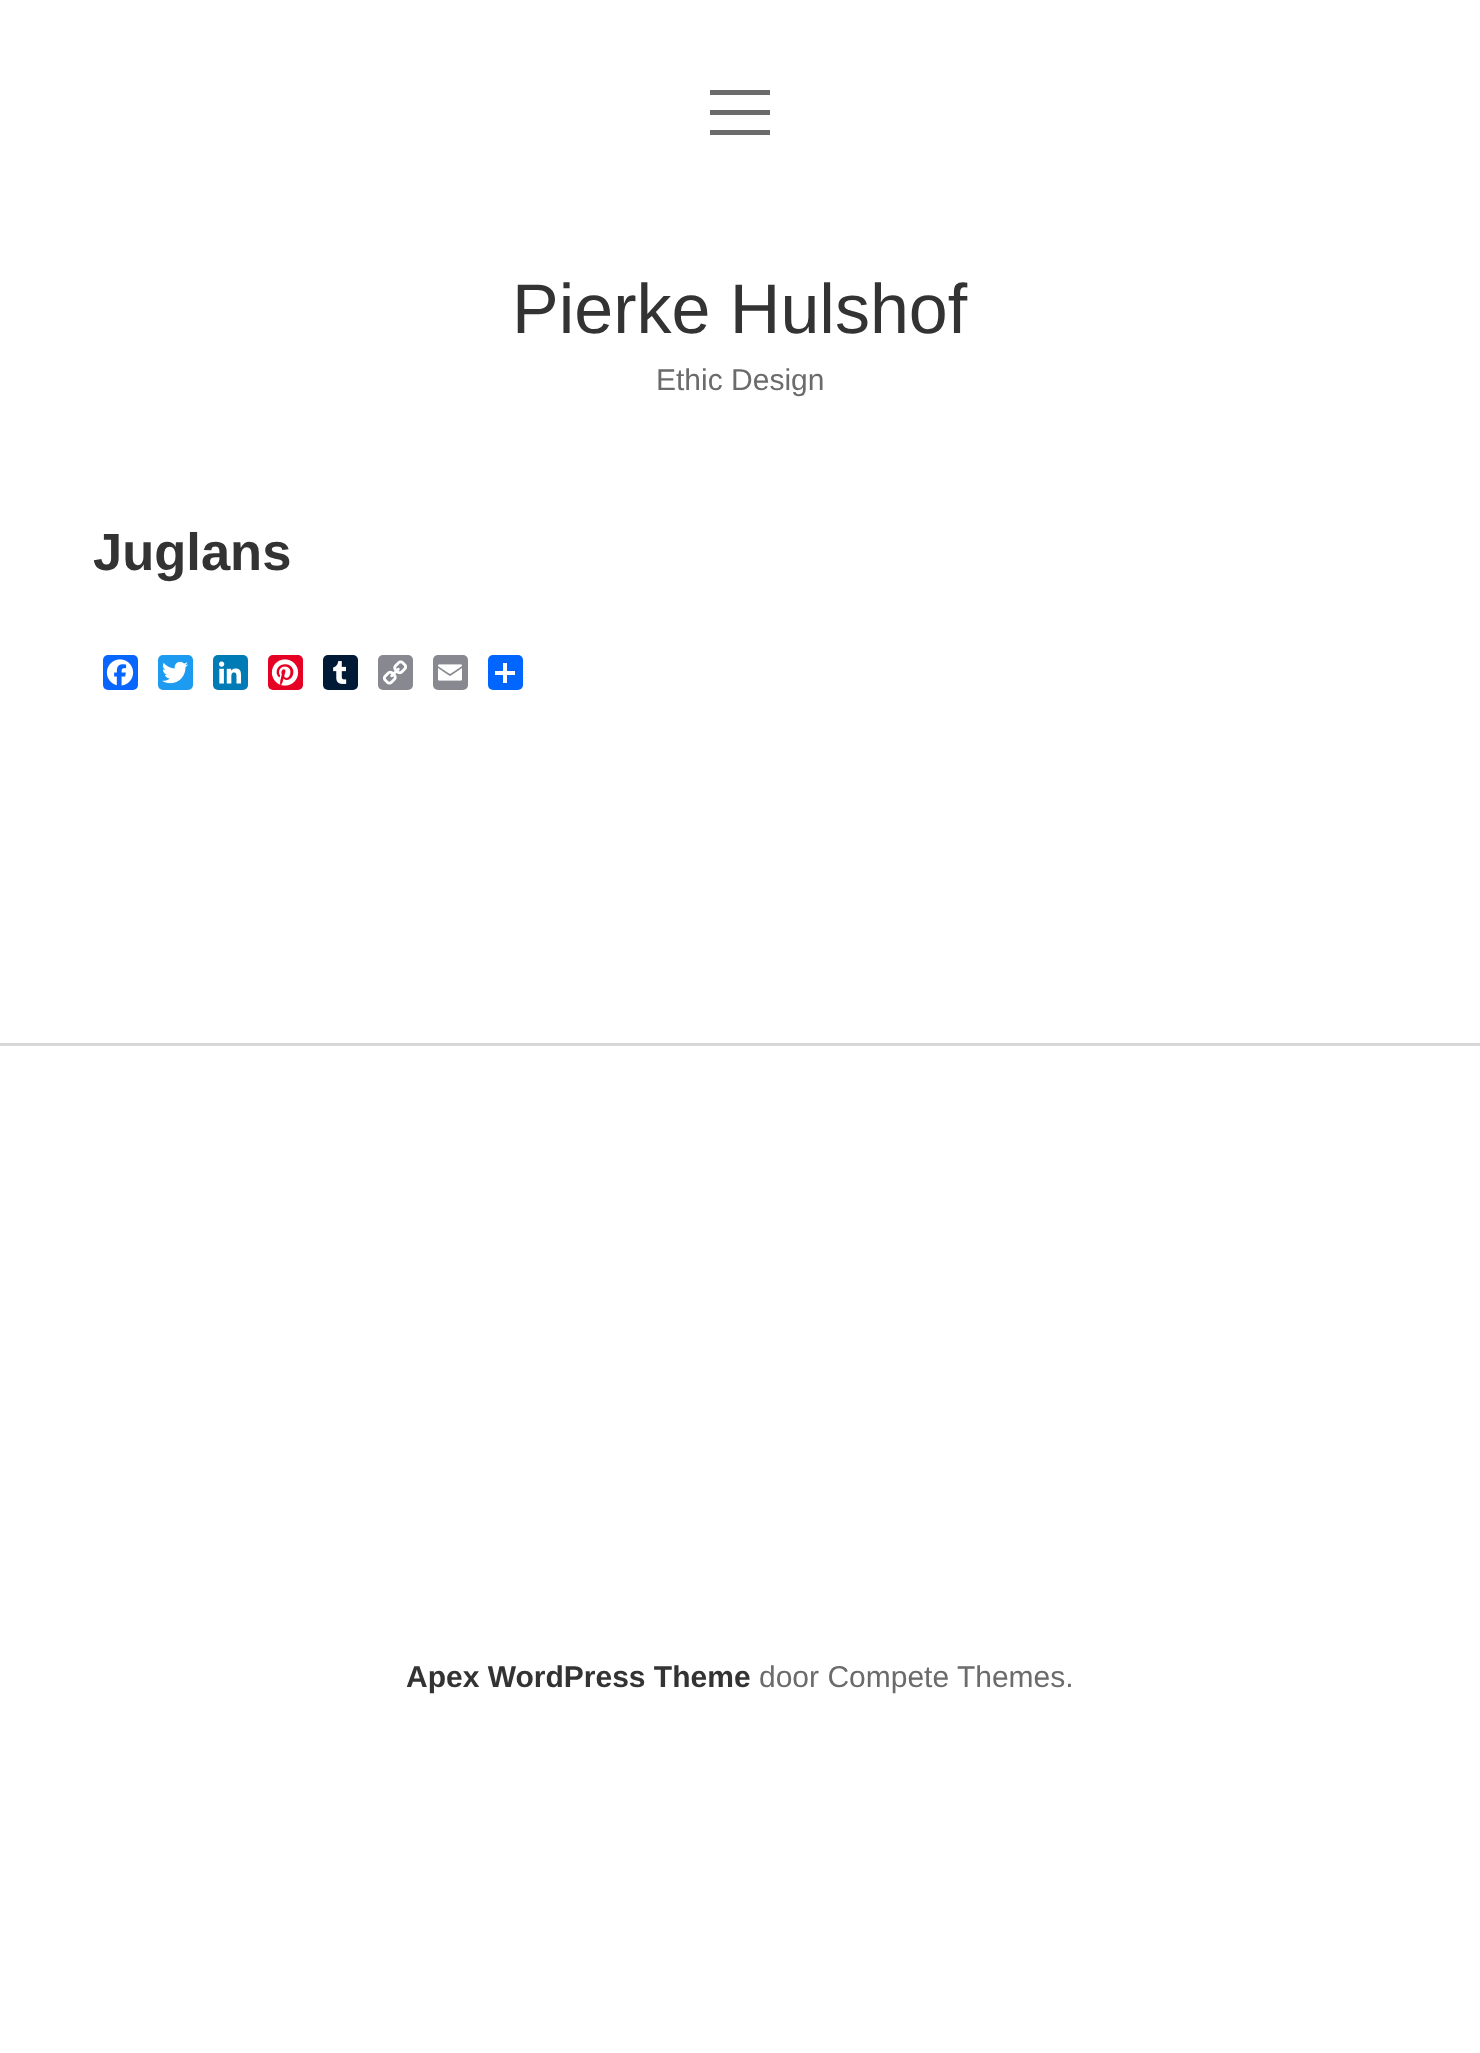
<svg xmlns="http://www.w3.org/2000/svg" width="1480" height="2053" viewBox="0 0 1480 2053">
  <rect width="100%" height="100%" fill="#fff"/>
  <path d="M710 90h60v5H710z" fill="#6b6b6b"/>
  <path d="M710 110h60v5H710z" fill="#6b6b6b"/>
  <path d="M710 130h60v5H710z" fill="#6b6b6b"/>
  <rect x="103" y="655" width="35" height="35" rx="5" fill="#0866ff"/>
  <image x="106" y="659" width="28" height="27" href="img/1.png"/>
  <rect x="158" y="655" width="35" height="35" rx="5" fill="#1d9bf0"/>
  <image x="162" y="661" width="26" height="23" href="img/2.png"/>
  <rect x="213" y="655" width="35" height="35" rx="5" fill="#007bb5"/>
  <image x="219" y="661" width="23" height="23" href="img/3.png"/>
  <rect x="268" y="655" width="35" height="35" rx="5" fill="#e60023"/>
  <image x="271" y="659" width="28" height="27" href="img/4.png"/>
  <rect x="323" y="655" width="35" height="35" rx="5" fill="#001935"/>
  <image x="333" y="661" width="14" height="23" href="img/5.png"/>
  <rect x="378" y="655" width="35" height="35" rx="5" fill="#888990"/>
  <image x="383" y="660" width="24" height="25" href="img/6.png"/>
  <rect x="433" y="655" width="35" height="35" rx="5" fill="#888990"/>
  <image x="438" y="664" width="24" height="17" href="img/7.png"/>
  <rect x="488" y="655" width="35" height="35" rx="5" fill="#0166ff"/>
  <path d="M503 663h4v20H503z" fill="#fff"/>
  <path d="M495 671h20v4H495z" fill="#fff"/>
  <path d="M0 1043h1480v3H0z" fill="#d8d8d8"/>
  <text x="512" y="333" font-family="Liberation Sans" font-size="70" fill="#333">Pierke Hulshof</text>
  <text x="656" y="390" font-family="Liberation Sans" font-size="30" fill="#6b6b6b">Ethic Design</text>
  <text x="93" y="570" font-family="Liberation Sans" font-size="52.5" font-weight="bold" fill="#333">Juglans</text>
  <text x="406" y="1687" font-family="Liberation Sans" font-size="30" font-weight="bold" fill="#333">Apex WordPress Theme</text>
  <text x="759" y="1687" font-family="Liberation Sans" font-size="30" fill="#6b6b6b">door Compete Themes.</text>
</svg>
